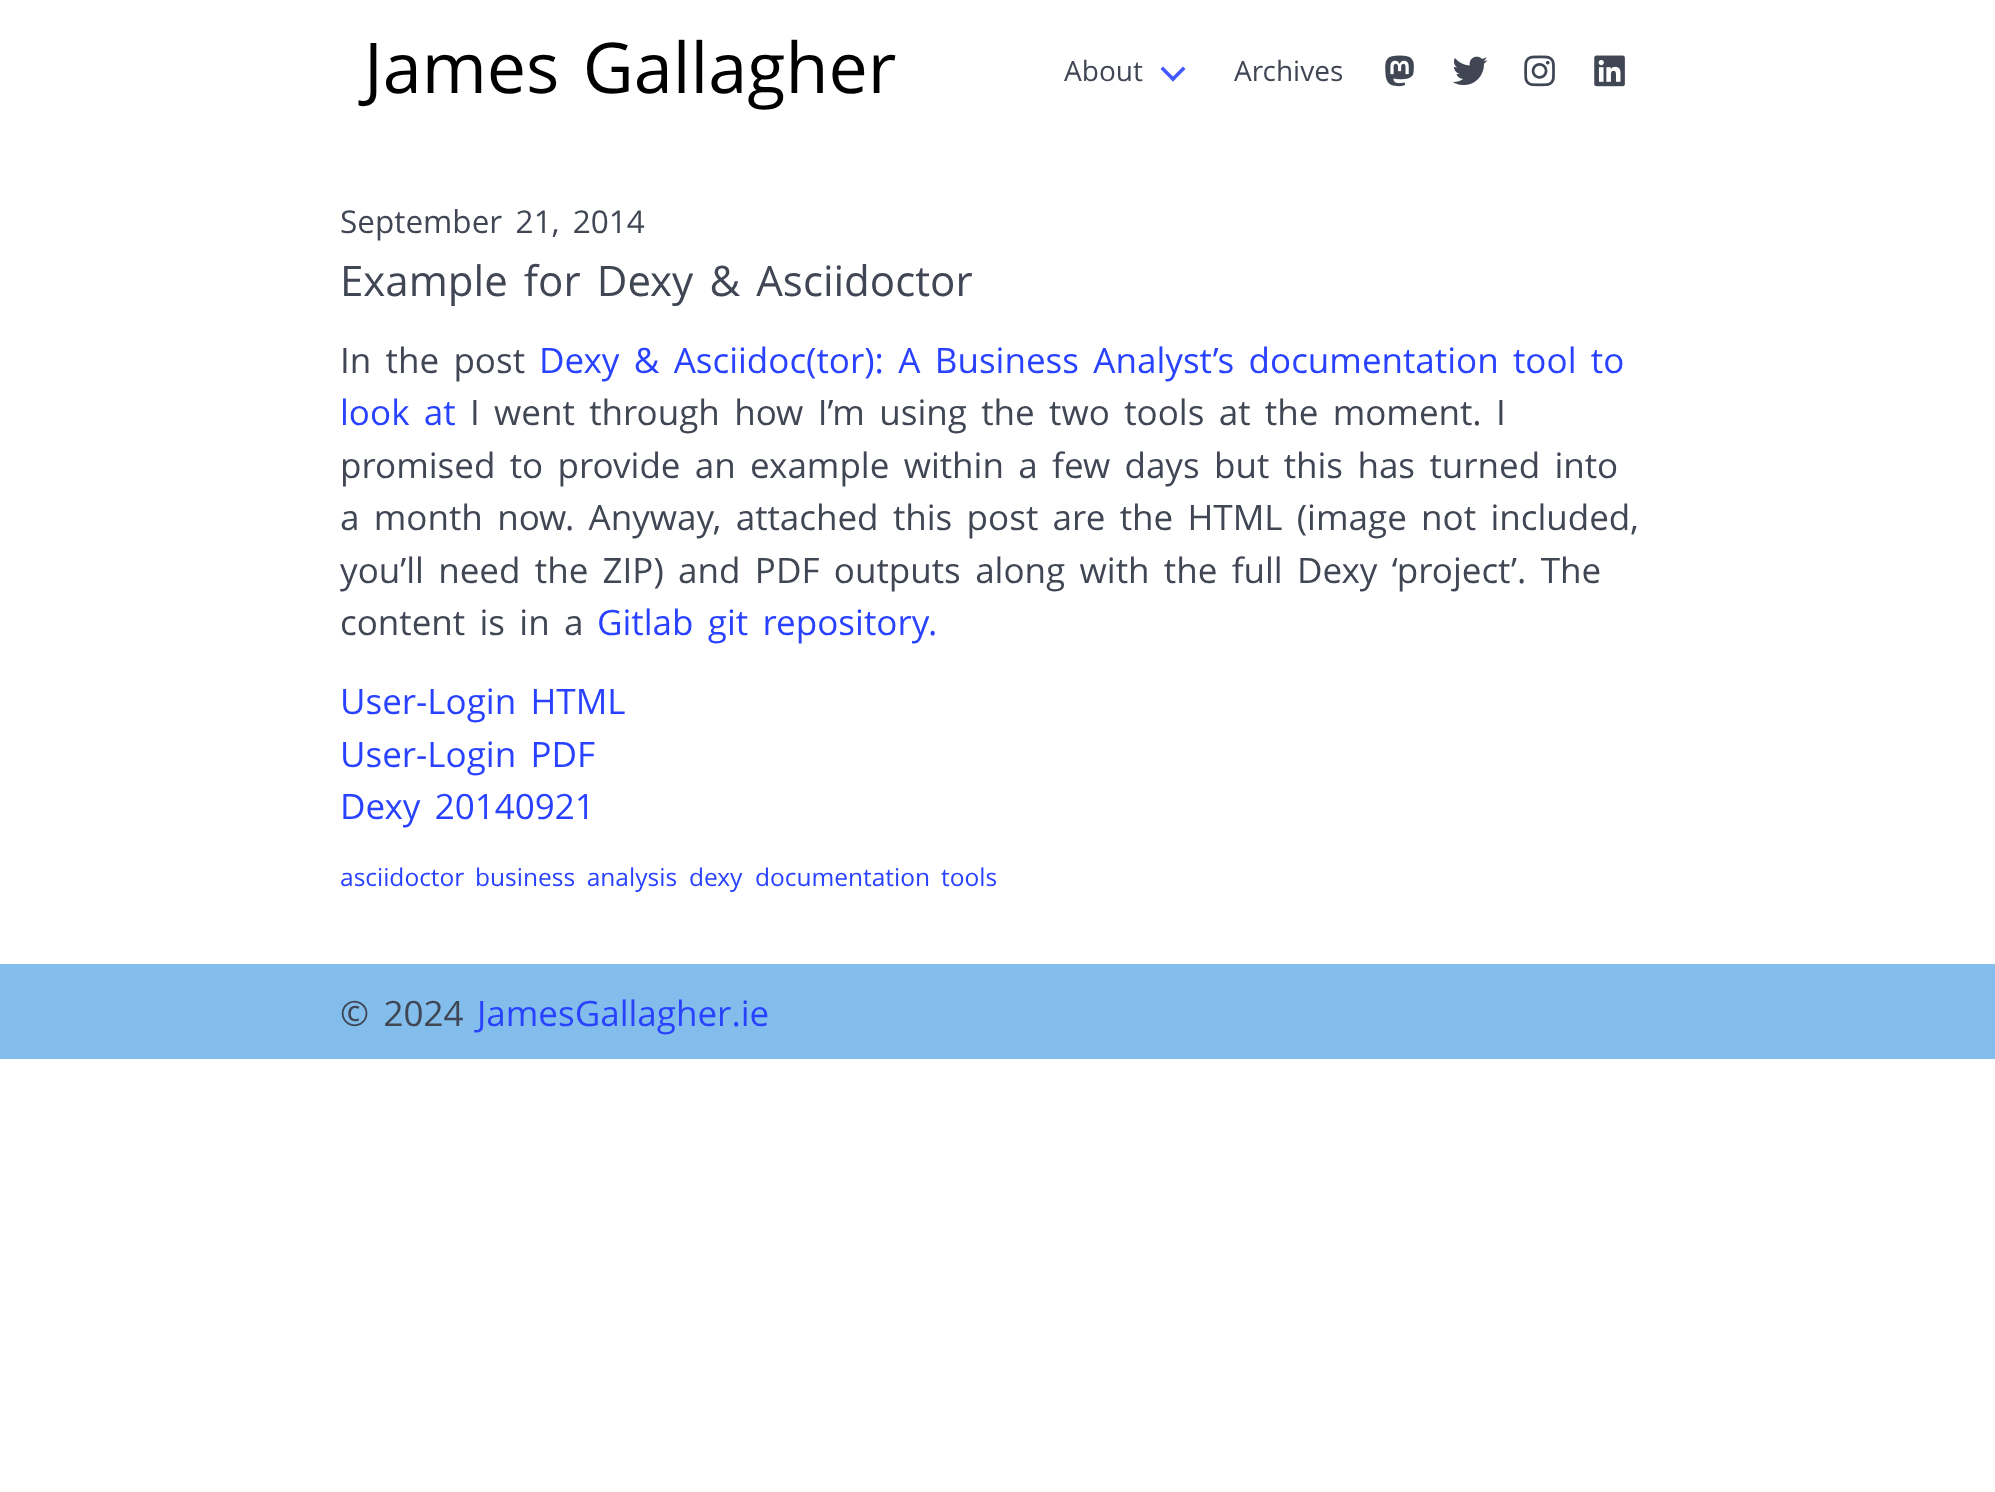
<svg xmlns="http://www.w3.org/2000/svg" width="1995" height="1492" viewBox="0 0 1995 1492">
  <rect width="100%" height="100%" fill="#fff"/>
  <path d="M1170.5 79L1183 66.5L1185.5 69L1173 81.5Z" fill="#4258ff"/>
  <path d="M1160.5 69L1163 66.5L1175.5 79L1173 81.5Z" fill="#4258ff"/>
  <image x="1385" y="55" width="29" height="32" href="img/1.png"/>
  <image x="1452" y="56" width="36" height="30" href="img/2.png"/>
  <image x="1524" y="55" width="31" height="32" href="img/3.png"/>
  <image x="1594" y="55" width="31" height="32" href="img/4.png"/>
  <path d="M0 964h1995v95H0z" fill="#82bdeb"/>
  <text x="364" y="93" word-spacing="5.25" font-family="Open Sans" font-size="70" fill="#000">James Gallagher</text>
  <g font-family="Open Sans" font-size="28" fill="#404654">
    <text x="1064" y="81">About</text>
    <text x="1234" y="81">Archives</text>
  </g>
  <text x="340" y="233" word-spacing="5.25" font-family="Open Sans" font-size="31.5" fill="#404654">September 21, 2014</text>
  <text x="340" y="296" word-spacing="5.25" font-family="Open Sans" font-size="42" fill="#404654">Example for Dexy &amp; Asciidoctor</text>
  <text x="340" y="373" word-spacing="5.25" font-family="Open Sans" font-size="35" fill="#404654">In the post</text>
  <g font-family="Open Sans" font-size="35" fill="#2942ff">
    <text x="539" y="373" word-spacing="5.25">Dexy &amp; Asciidoc(tor): A Business Analyst’s documentation tool to</text>
    <text x="340" y="425" word-spacing="5.25">look at</text>
  </g>
  <g font-family="Open Sans" font-size="35" fill="#404654">
    <text x="470" y="425" word-spacing="5.25">I went through how I’m using the two tools at the moment. I</text>
    <text x="340" y="478" word-spacing="5.25">promised to provide an example within a few days but this has turned into</text>
    <text x="340" y="530" word-spacing="5.25">a month now. Anyway, attached this post are the HTML (image not included,</text>
    <text x="340" y="583" word-spacing="5.25">you’ll need the ZIP) and PDF outputs along with the full Dexy ‘project’. The</text>
    <text x="340" y="635" word-spacing="5.25">content is in a</text>
  </g>
  <g font-family="Open Sans" font-size="35" fill="#2942ff">
    <text x="597" y="635" word-spacing="5.25">Gitlab git repository.</text>
    <text x="340" y="714" word-spacing="5.25">User-Login HTML</text>
    <text x="340" y="767" word-spacing="5.25">User-Login PDF</text>
    <text x="340" y="819" word-spacing="5.25">Dexy 20140921</text>
  </g>
  <g font-family="Open Sans" font-size="24.5" fill="#2942ff">
    <text x="340" y="886">asciidoctor</text>
    <text x="475" y="886" word-spacing="5.25">business analysis</text>
    <text x="689" y="886">dexy</text>
    <text x="755" y="886">documentation</text>
    <text x="941" y="886">tools</text>
  </g>
  <text x="340" y="1026" word-spacing="5.25" font-family="Open Sans" font-size="35" fill="#404654">© 2024</text>
  <text x="477" y="1026" font-family="Open Sans" font-size="35" fill="#2942ff">JamesGallagher.ie</text>
</svg>
